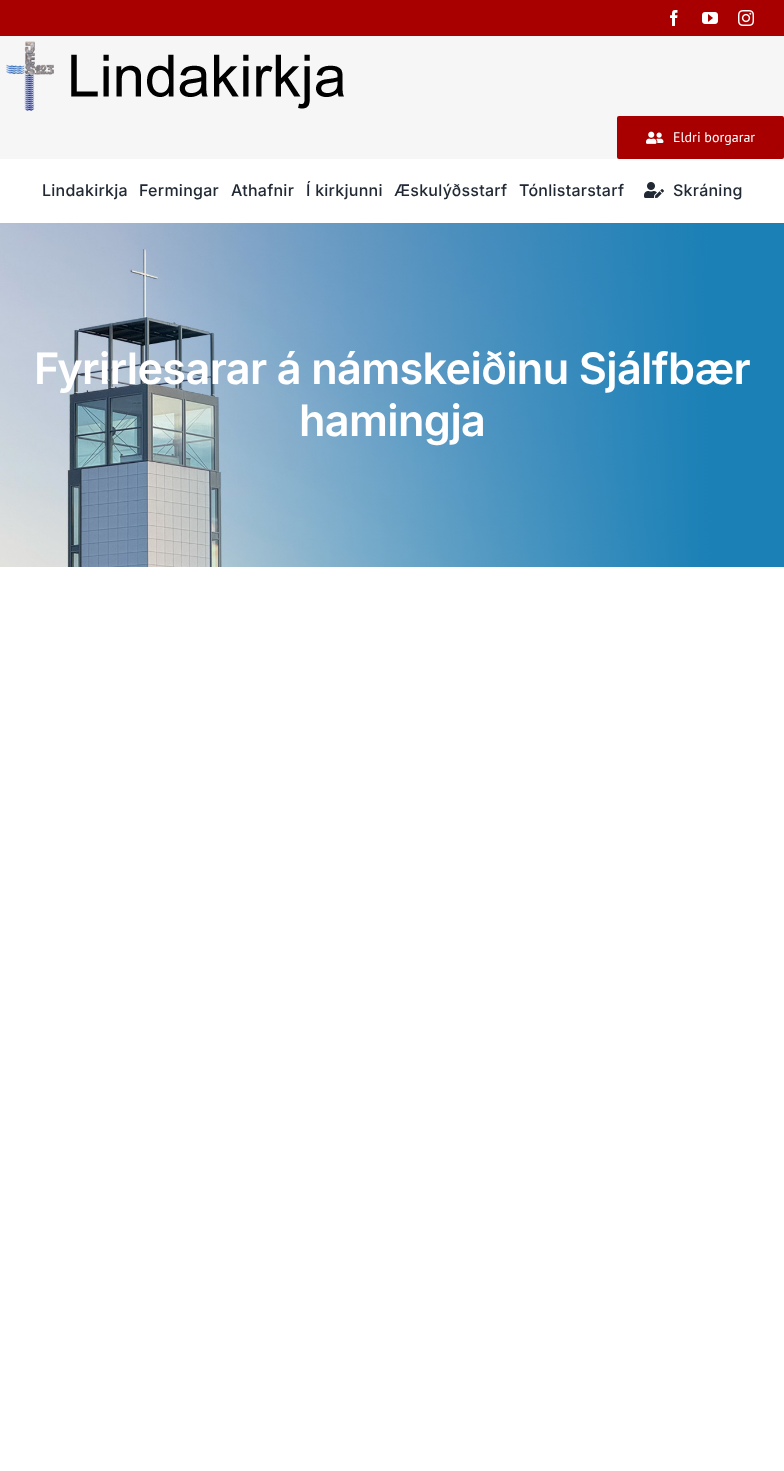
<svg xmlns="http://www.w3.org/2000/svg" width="784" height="1471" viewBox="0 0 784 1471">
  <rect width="100%" height="100%" fill="#fff"/>
  <path d="M0 0h784v36H0z" fill="#a80000"/>
  <image x="670" y="10" width="8" height="16" href="img/1.png"/>
  <image x="702" y="12" width="16" height="12" href="img/2.png"/>
  <image x="738" y="10" width="16" height="16" href="img/3.png"/>
  <path d="M0 36h784v123H0z" fill="#f6f6f6"/>
  <image x="6" y="41" width="338" height="70" href="img/4.png"/>
  <rect x="617" y="116" width="167" height="43" rx="2" fill="#a80000"/>
  <image x="646" y="131" width="18" height="13" href="img/5.png"/>
  <image x="644" y="182" width="20" height="16" href="img/6.png"/>
  <image x="0" y="223" width="784" height="344" href="img/7.png"/>
  <text x="673" y="142" font-family="PT Sans" font-size="14" fill="#fff">Eldri borgarar</text>
  <g font-family="Inter" font-size="16" font-weight="500" letter-spacing="0.25" fill="#212934">
    <text x="42" y="196">Lindakirkja</text>
    <text x="139" y="196">Fermingar</text>
    <text x="231" y="196">Athafnir</text>
    <text x="306" y="196">Í kirkjunni</text>
    <text x="394" y="196">Æskulýðsstarf</text>
    <text x="519" y="196">Tónlistarstarf</text>
    <text x="673" y="196">Skráning</text>
  </g>
  <g font-family="Inter" font-size="43.25" font-weight="600" letter-spacing="-0.65" fill="#fff">
    <text x="34" y="384">Fyrirlesarar á námskeiðinu Sjálfbær</text>
    <text x="299" y="436">hamingja</text>
  </g>
</svg>
